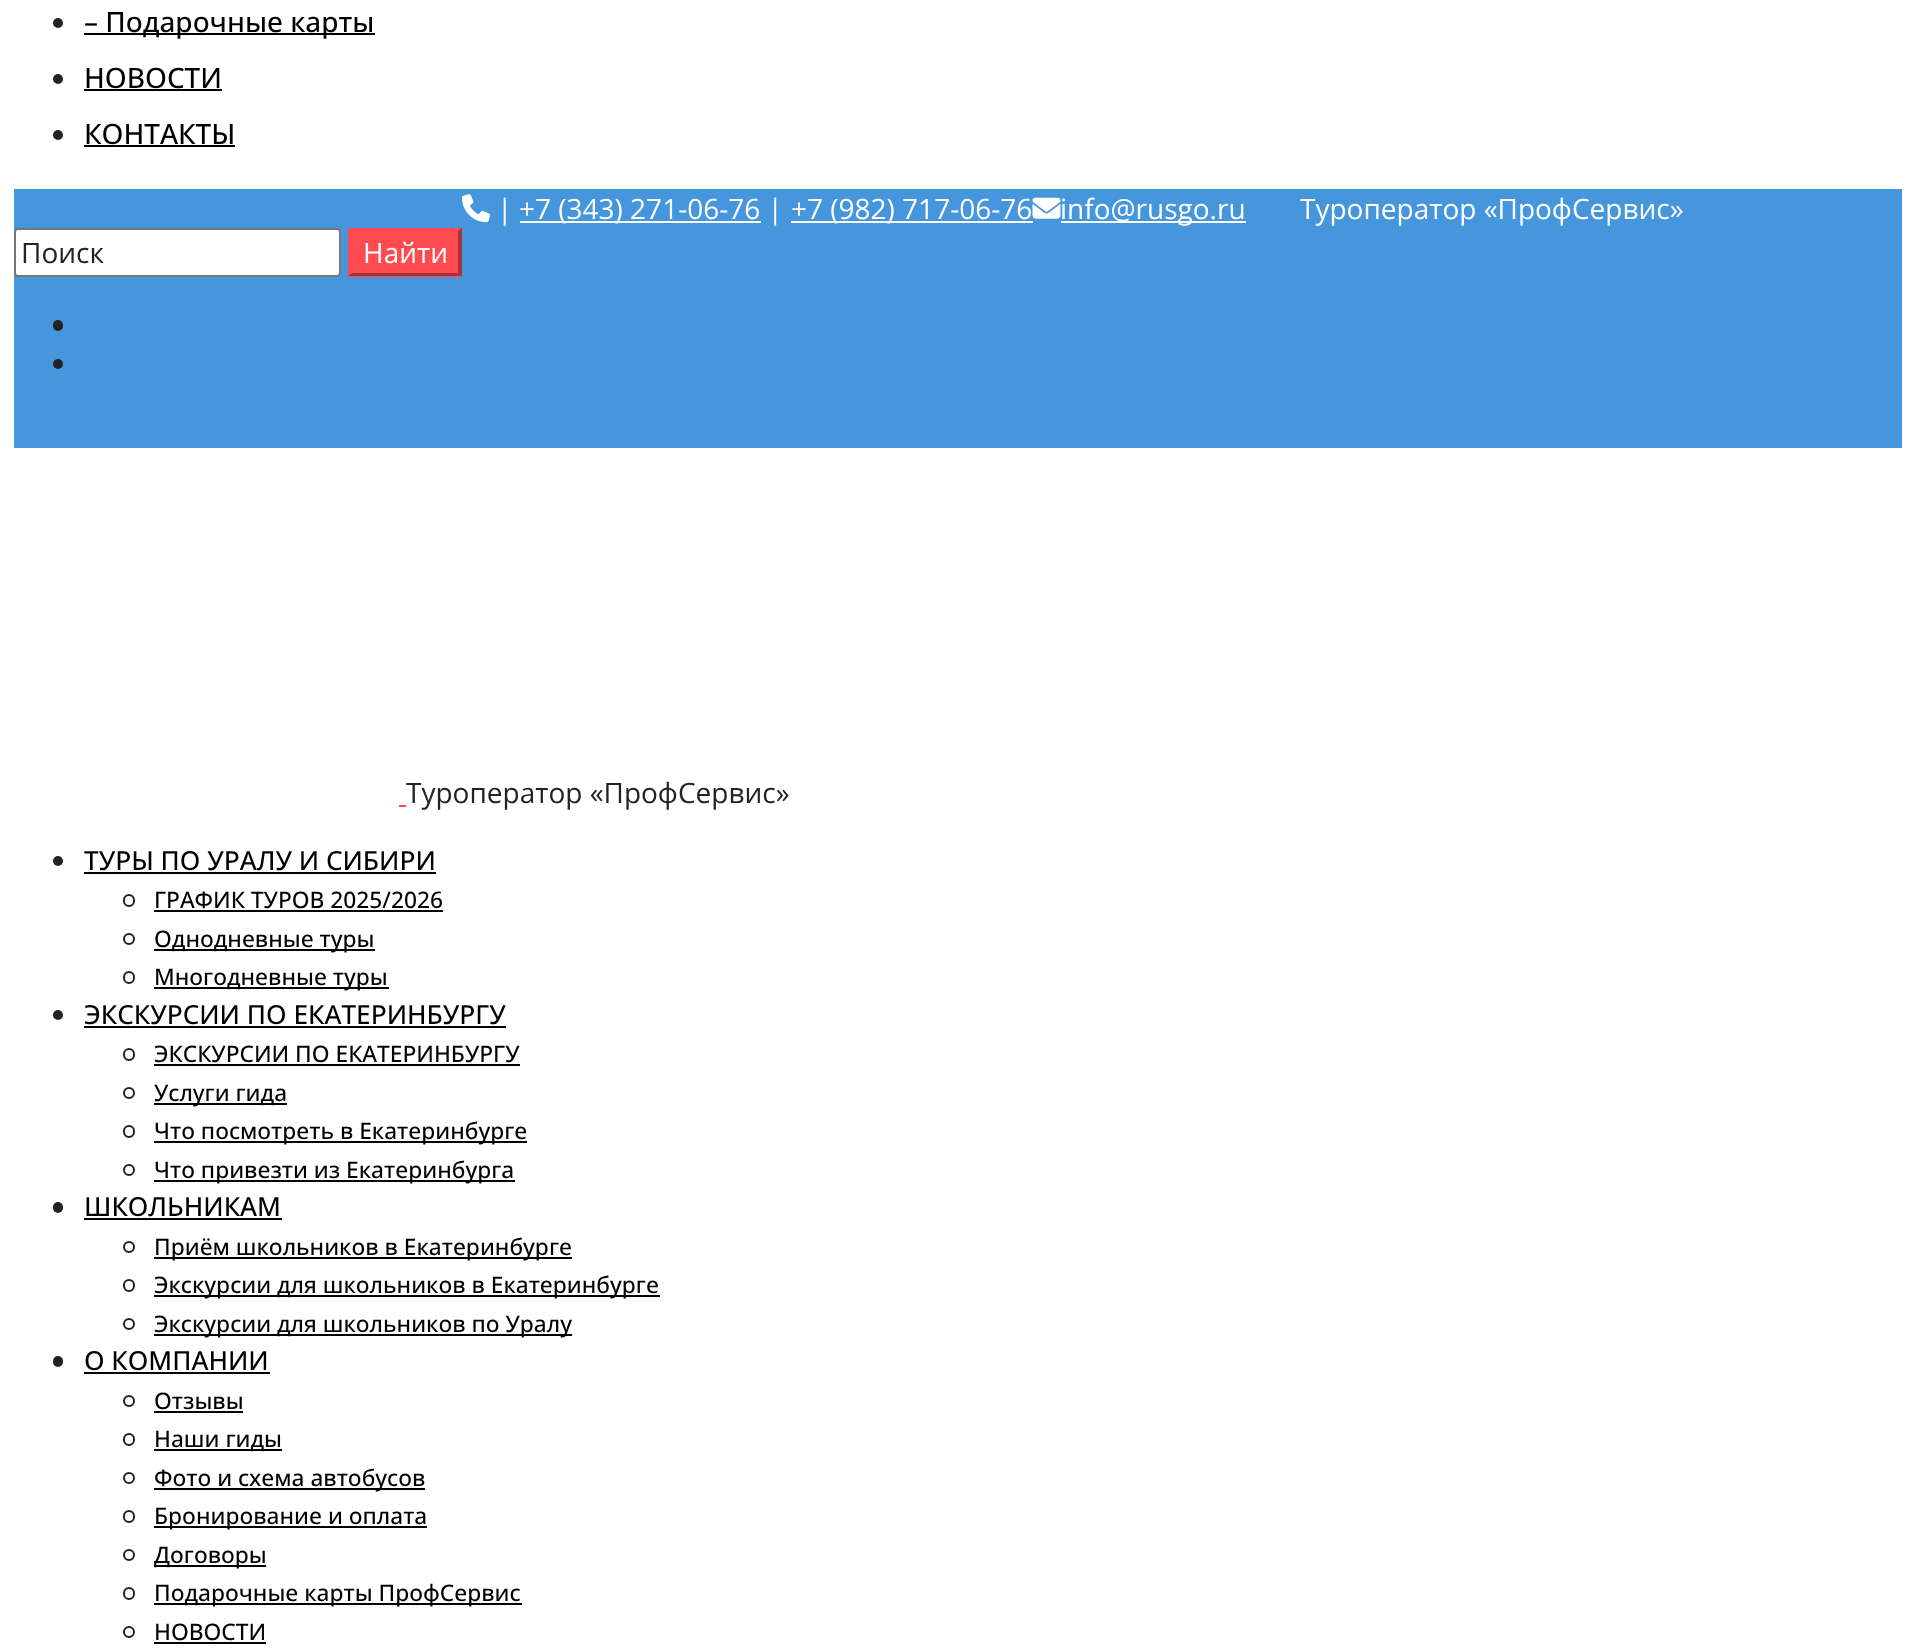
<svg xmlns="http://www.w3.org/2000/svg" width="1915" height="1650" viewBox="0 0 1915 1650">
  <rect width="100%" height="100%" fill="#fff"/>
  <circle cx="58" cy="23" r="5" fill="#222"/>
  <path d="M84 33h291v2H84z" fill="#000"/>
  <circle cx="58" cy="79" r="5" fill="#222"/>
  <path d="M84 89h138v2H84z" fill="#000"/>
  <circle cx="58" cy="135" r="5" fill="#222"/>
  <path d="M84 145h151v2H84z" fill="#000"/>
  <path d="M14 189h1888v259H14z" fill="#4596dd"/>
  <image x="462" y="194" width="28" height="29" href="img/1.png"/>
  <path d="M520 221h241v2H520z" fill="#fff"/>
  <path d="M791 221h242v2H791z" fill="#fff"/>
  <image x="1032" y="197" width="29" height="22" href="img/2.png"/>
  <path d="M1061 221h185v2H1061z" fill="#fff"/>
  <rect x="15" y="229" width="325" height="47" rx="3" fill="#fff" stroke="#767676" stroke-width="2"/>
  <path d="M348 228h114v49H348z" fill="#ff4a52"/>
  <path d="M462 228V276L458 273V231Z" fill="#aa3137"/>
  <path d="M462 276H348L352 273H458Z" fill="#aa3137"/>
  <path d="M348 276V228L352 231V273Z" fill="#ff4a52"/>
  <rect x="53" y="320" width="10" height="11" rx="5" fill="#222"/>
  <circle cx="58" cy="364" r="5" fill="#222"/>
  <path d="M399 805h7v2H399z" fill="#ff4a52"/>
  <circle cx="58" cy="861" r="5" fill="#222"/>
  <path d="M84 872h352v2H84z" fill="#000"/>
  <rect x="124" y="895" width="10" height="11" rx="5" fill="none" stroke="#222" stroke-width="2"/>
  <path d="M154 910h289v2H154z" fill="#000"/>
  <circle cx="129" cy="939" r="5" fill="none" stroke="#222" stroke-width="2"/>
  <path d="M154 949h221v2H154z" fill="#000"/>
  <rect x="124" y="972" width="10" height="11" rx="5" fill="none" stroke="#222" stroke-width="2"/>
  <path d="M154 987h235v2H154z" fill="#000"/>
  <circle cx="58" cy="1015" r="5" fill="#222"/>
  <path d="M84 1026h422v2H84z" fill="#000"/>
  <rect x="124" y="1049" width="10" height="11" rx="5" fill="none" stroke="#222" stroke-width="2"/>
  <path d="M154 1064h366v2H154z" fill="#000"/>
  <circle cx="129" cy="1093" r="5" fill="none" stroke="#222" stroke-width="2"/>
  <path d="M154 1103h133v2H154z" fill="#000"/>
  <rect x="124" y="1126" width="10" height="11" rx="5" fill="none" stroke="#222" stroke-width="2"/>
  <path d="M154 1141h373v2H154z" fill="#000"/>
  <circle cx="129" cy="1170" r="5" fill="none" stroke="#222" stroke-width="2"/>
  <path d="M154 1180h361v2H154z" fill="#000"/>
  <rect x="53" y="1202" width="10" height="11" rx="5" fill="#222"/>
  <path d="M84 1218h198v2H84z" fill="#000"/>
  <circle cx="129" cy="1247" r="5" fill="none" stroke="#222" stroke-width="2"/>
  <path d="M154 1257h418v2H154z" fill="#000"/>
  <rect x="124" y="1280" width="10" height="11" rx="5" fill="none" stroke="#222" stroke-width="2"/>
  <path d="M154 1295h506v2H154z" fill="#000"/>
  <circle cx="129" cy="1324" r="5" fill="none" stroke="#222" stroke-width="2"/>
  <path d="M154 1334h418v2H154z" fill="#000"/>
  <rect x="53" y="1356" width="10" height="11" rx="5" fill="#222"/>
  <path d="M84 1372h186v2H84z" fill="#000"/>
  <circle cx="129" cy="1401" r="5" fill="none" stroke="#222" stroke-width="2"/>
  <path d="M154 1411h89v2H154z" fill="#000"/>
  <rect x="124" y="1434" width="10" height="11" rx="5" fill="none" stroke="#222" stroke-width="2"/>
  <path d="M154 1449h128v2H154z" fill="#000"/>
  <circle cx="129" cy="1478" r="5" fill="none" stroke="#222" stroke-width="2"/>
  <path d="M154 1488h271v2H154z" fill="#000"/>
  <rect x="124" y="1511" width="10" height="11" rx="5" fill="none" stroke="#222" stroke-width="2"/>
  <path d="M154 1526h273v2H154z" fill="#000"/>
  <circle cx="129" cy="1555" r="5" fill="none" stroke="#222" stroke-width="2"/>
  <path d="M154 1565h112v2H154z" fill="#000"/>
  <rect x="124" y="1588" width="10" height="11" rx="5" fill="none" stroke="#222" stroke-width="2"/>
  <path d="M154 1603h368v2H154z" fill="#000"/>
  <circle cx="129" cy="1632" r="5" fill="none" stroke="#222" stroke-width="2"/>
  <path d="M154 1642h112v2H154z" fill="#000"/>
  <g font-family="Open Sans" font-size="28" font-weight="500" fill="#000">
    <text x="84" y="32">– Подарочные карты</text>
    <text x="84" y="88">НОВОСТИ</text>
    <text x="84" y="144">КОНТАКТЫ</text>
  </g>
  <g font-family="Open Sans" font-size="28" fill="#fff">
    <text x="497" y="219">|</text>
    <text x="519" y="219">+7 (343) 271-06-76 |</text>
    <text x="791" y="219">+7 (982) 717-06-76</text>
    <text x="1060" y="219">info@rusgo.ru</text>
    <text x="1300" y="219">Туроператор «ПрофСервис»</text>
  </g>
  <text x="21" y="263" font-family="Open Sans" font-size="28" fill="#222">Поиск</text>
  <text x="363" y="263" font-family="Open Sans" font-size="28" fill="#fff">Найти</text>
  <text x="406" y="803" font-family="Open Sans" font-size="28" fill="#222">Туроператор «ПрофСервис»</text>
  <text x="84" y="870" font-family="Open Sans" font-size="26.25" font-weight="500" fill="#000">ТУРЫ ПО УРАЛУ И СИБИРИ</text>
  <g font-family="Open Sans" font-size="22.75" font-weight="500" fill="#000">
    <text x="154" y="908">ГРАФИК ТУРОВ 2025/2026</text>
    <text x="154" y="947">Однодневные туры</text>
    <text x="154" y="985">Многодневные туры</text>
  </g>
  <text x="84" y="1024" font-family="Open Sans" font-size="26.25" font-weight="500" fill="#000">ЭКСКУРСИИ ПО ЕКАТЕРИНБУРГУ</text>
  <g font-family="Open Sans" font-size="22.75" font-weight="500" fill="#000">
    <text x="154" y="1062">ЭКСКУРСИИ ПО ЕКАТЕРИНБУРГУ</text>
    <text x="154" y="1101">Услуги гида</text>
    <text x="154" y="1139">Что посмотреть в Екатеринбурге</text>
    <text x="154" y="1178">Что привезти из Екатеринбурга</text>
  </g>
  <text x="84" y="1216" font-family="Open Sans" font-size="26.25" font-weight="500" fill="#000">ШКОЛЬНИКАМ</text>
  <g font-family="Open Sans" font-size="22.75" font-weight="500" fill="#000">
    <text x="154" y="1255">Приём школьников в Екатеринбурге</text>
    <text x="154" y="1293">Экскурсии для школьников в Екатеринбурге</text>
    <text x="154" y="1332">Экскурсии для школьников по Уралу</text>
  </g>
  <text x="84" y="1370" font-family="Open Sans" font-size="26.25" font-weight="500" fill="#000">О КОМПАНИИ</text>
  <g font-family="Open Sans" font-size="22.75" font-weight="500" fill="#000">
    <text x="154" y="1409">Отзывы</text>
    <text x="154" y="1447">Наши гиды</text>
    <text x="154" y="1486">Фото и схема автобусов</text>
    <text x="154" y="1524">Бронирование и оплата</text>
    <text x="154" y="1563">Договоры</text>
    <text x="154" y="1601">Подарочные карты ПрофСервис</text>
    <text x="154" y="1640">НОВОСТИ</text>
  </g>
</svg>
